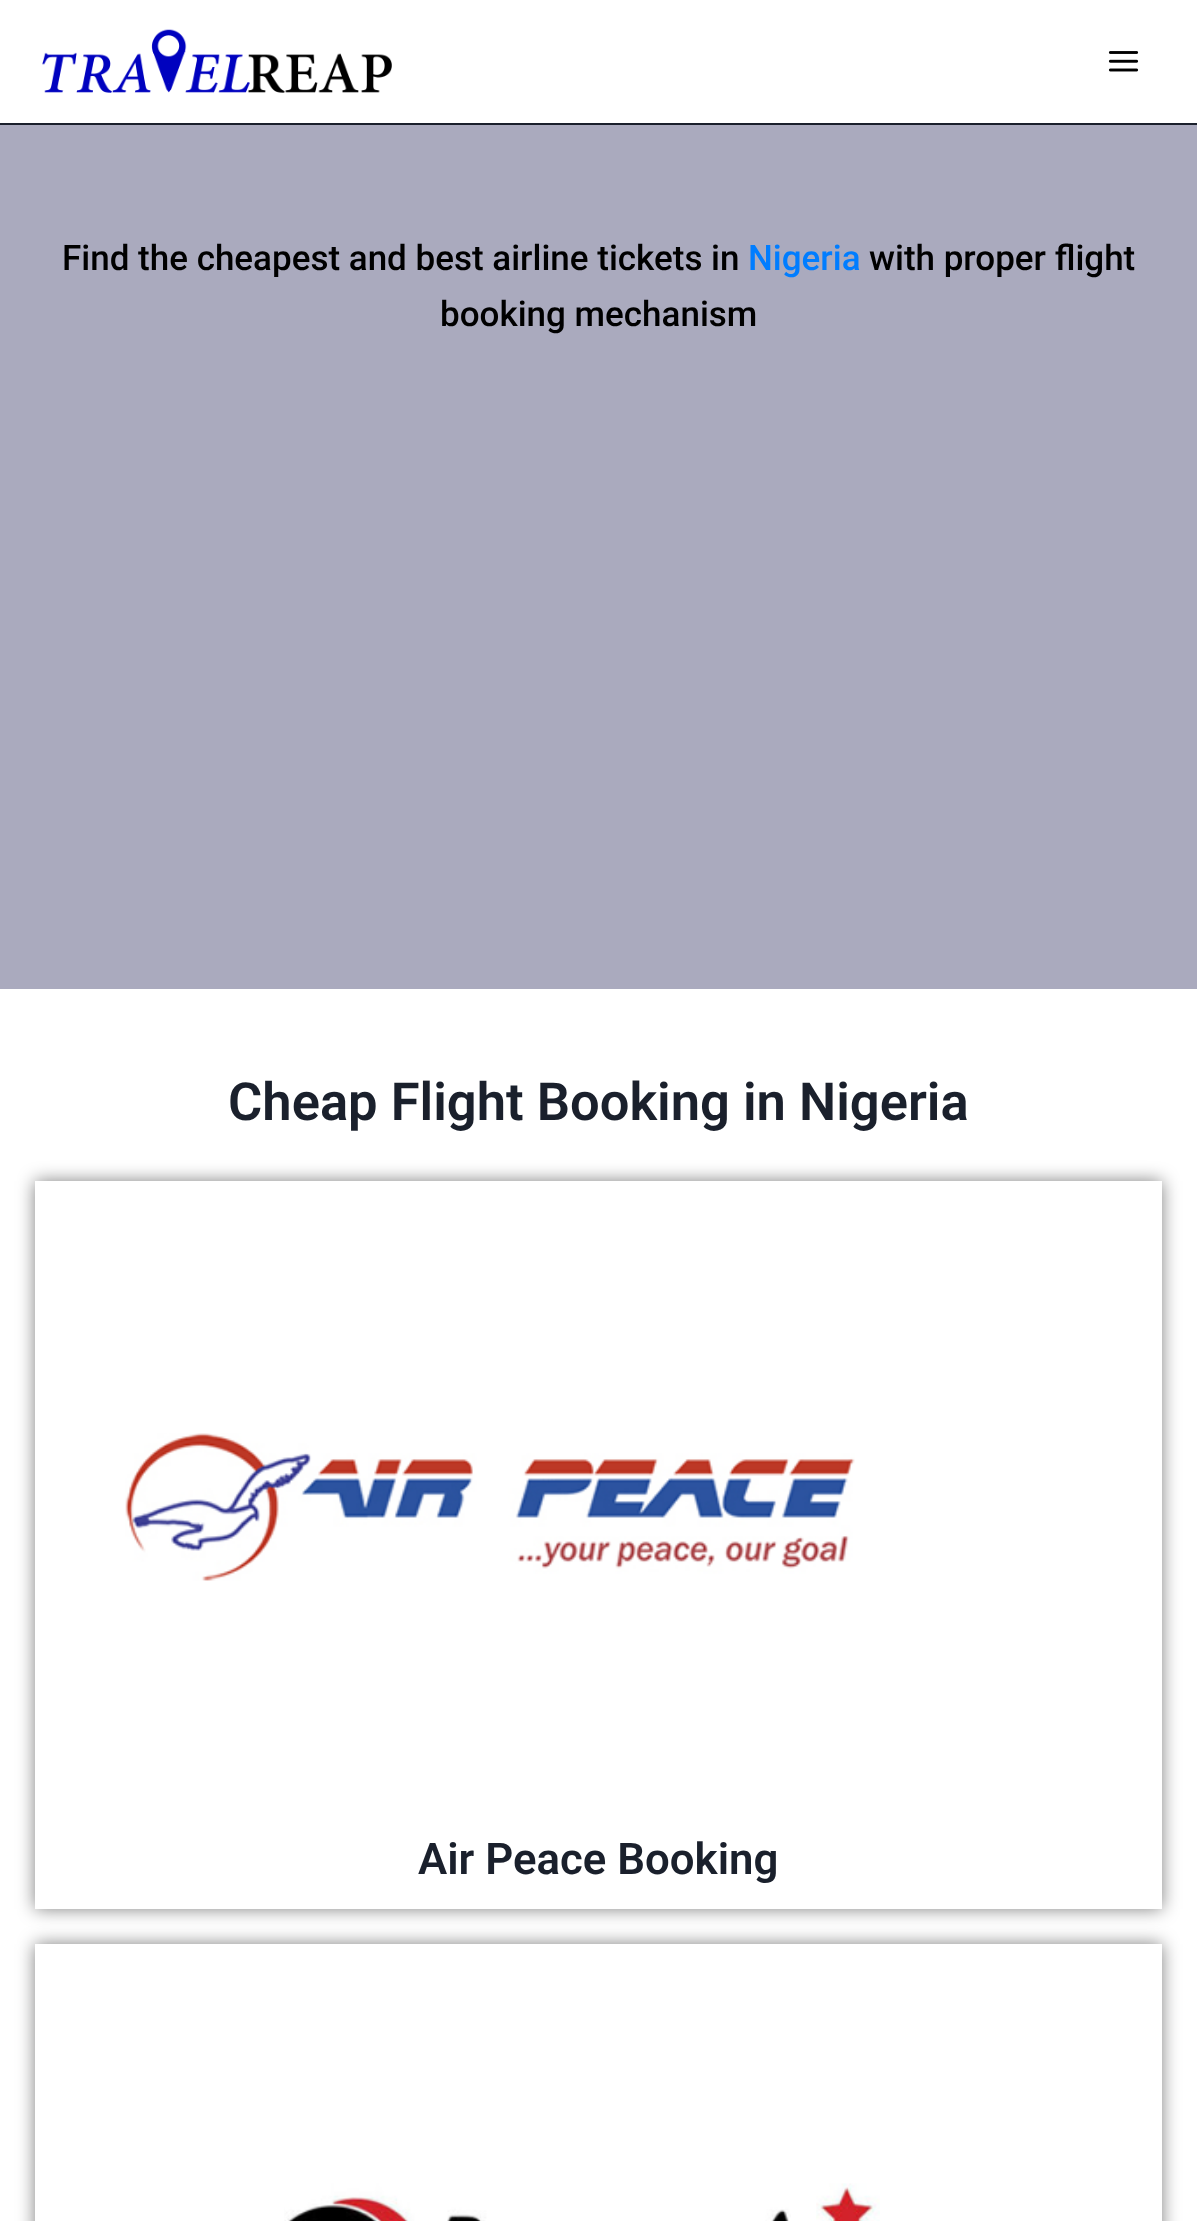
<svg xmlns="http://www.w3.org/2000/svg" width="1197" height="2221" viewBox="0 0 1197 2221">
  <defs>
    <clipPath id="clip1"><path d="M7 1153H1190V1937H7ZM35 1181H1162V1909H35Z" clip-rule="evenodd"/></clipPath>
    <clipPath id="clip2"><path d="M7 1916H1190V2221H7ZM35 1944H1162V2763H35Z" clip-rule="evenodd"/></clipPath>
  </defs>
  <rect width="100%" height="100%" fill="#fff"/>
  <path d="M0 123h1197v2H0z" fill="#1a202c"/>
  <image x="42" y="29" width="350" height="64" href="img/1.png"/>
  <image x="1108" y="51" width="31" height="21" href="img/2.png"/>
  <path d="M0 125h1197v864H0z" fill="#aaaabe"/>
  <g clip-path="url(#clip1)">
    <path d="M35 1181h1127v728H35z" fill="#00000080" filter="blur(9px)"/>
  </g>
  <image x="125" y="1433" width="730" height="148" href="img/3.png"/>
  <g clip-path="url(#clip2)">
    <path d="M35 1944h1127v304H35z" fill="#00000080" filter="blur(9px)"/>
  </g>
  <image x="284" y="2183" width="596" height="38" href="img/4.png"/>
  <text x="62" y="270" font-family="Roboto" font-size="35" font-weight="500" fill="#000">Find the cheapest and best airline tickets in</text>
  <text x="748" y="270" font-family="Roboto" font-size="35" font-weight="500" fill="#007dff">Nigeria</text>
  <g font-family="Roboto" font-size="35" font-weight="500" fill="#000">
    <text x="869" y="270">with proper flight</text>
    <text x="440" y="326">booking mechanism</text>
  </g>
  <text x="228" y="1120" font-family="Roboto" font-size="52.5" font-weight="600" fill="#1a202c">Cheap Flight Booking in Nigeria</text>
  <text x="418" y="1874" font-family="Roboto" font-size="43.75" font-weight="600" fill="#1a202c">Air Peace Booking</text>
</svg>
